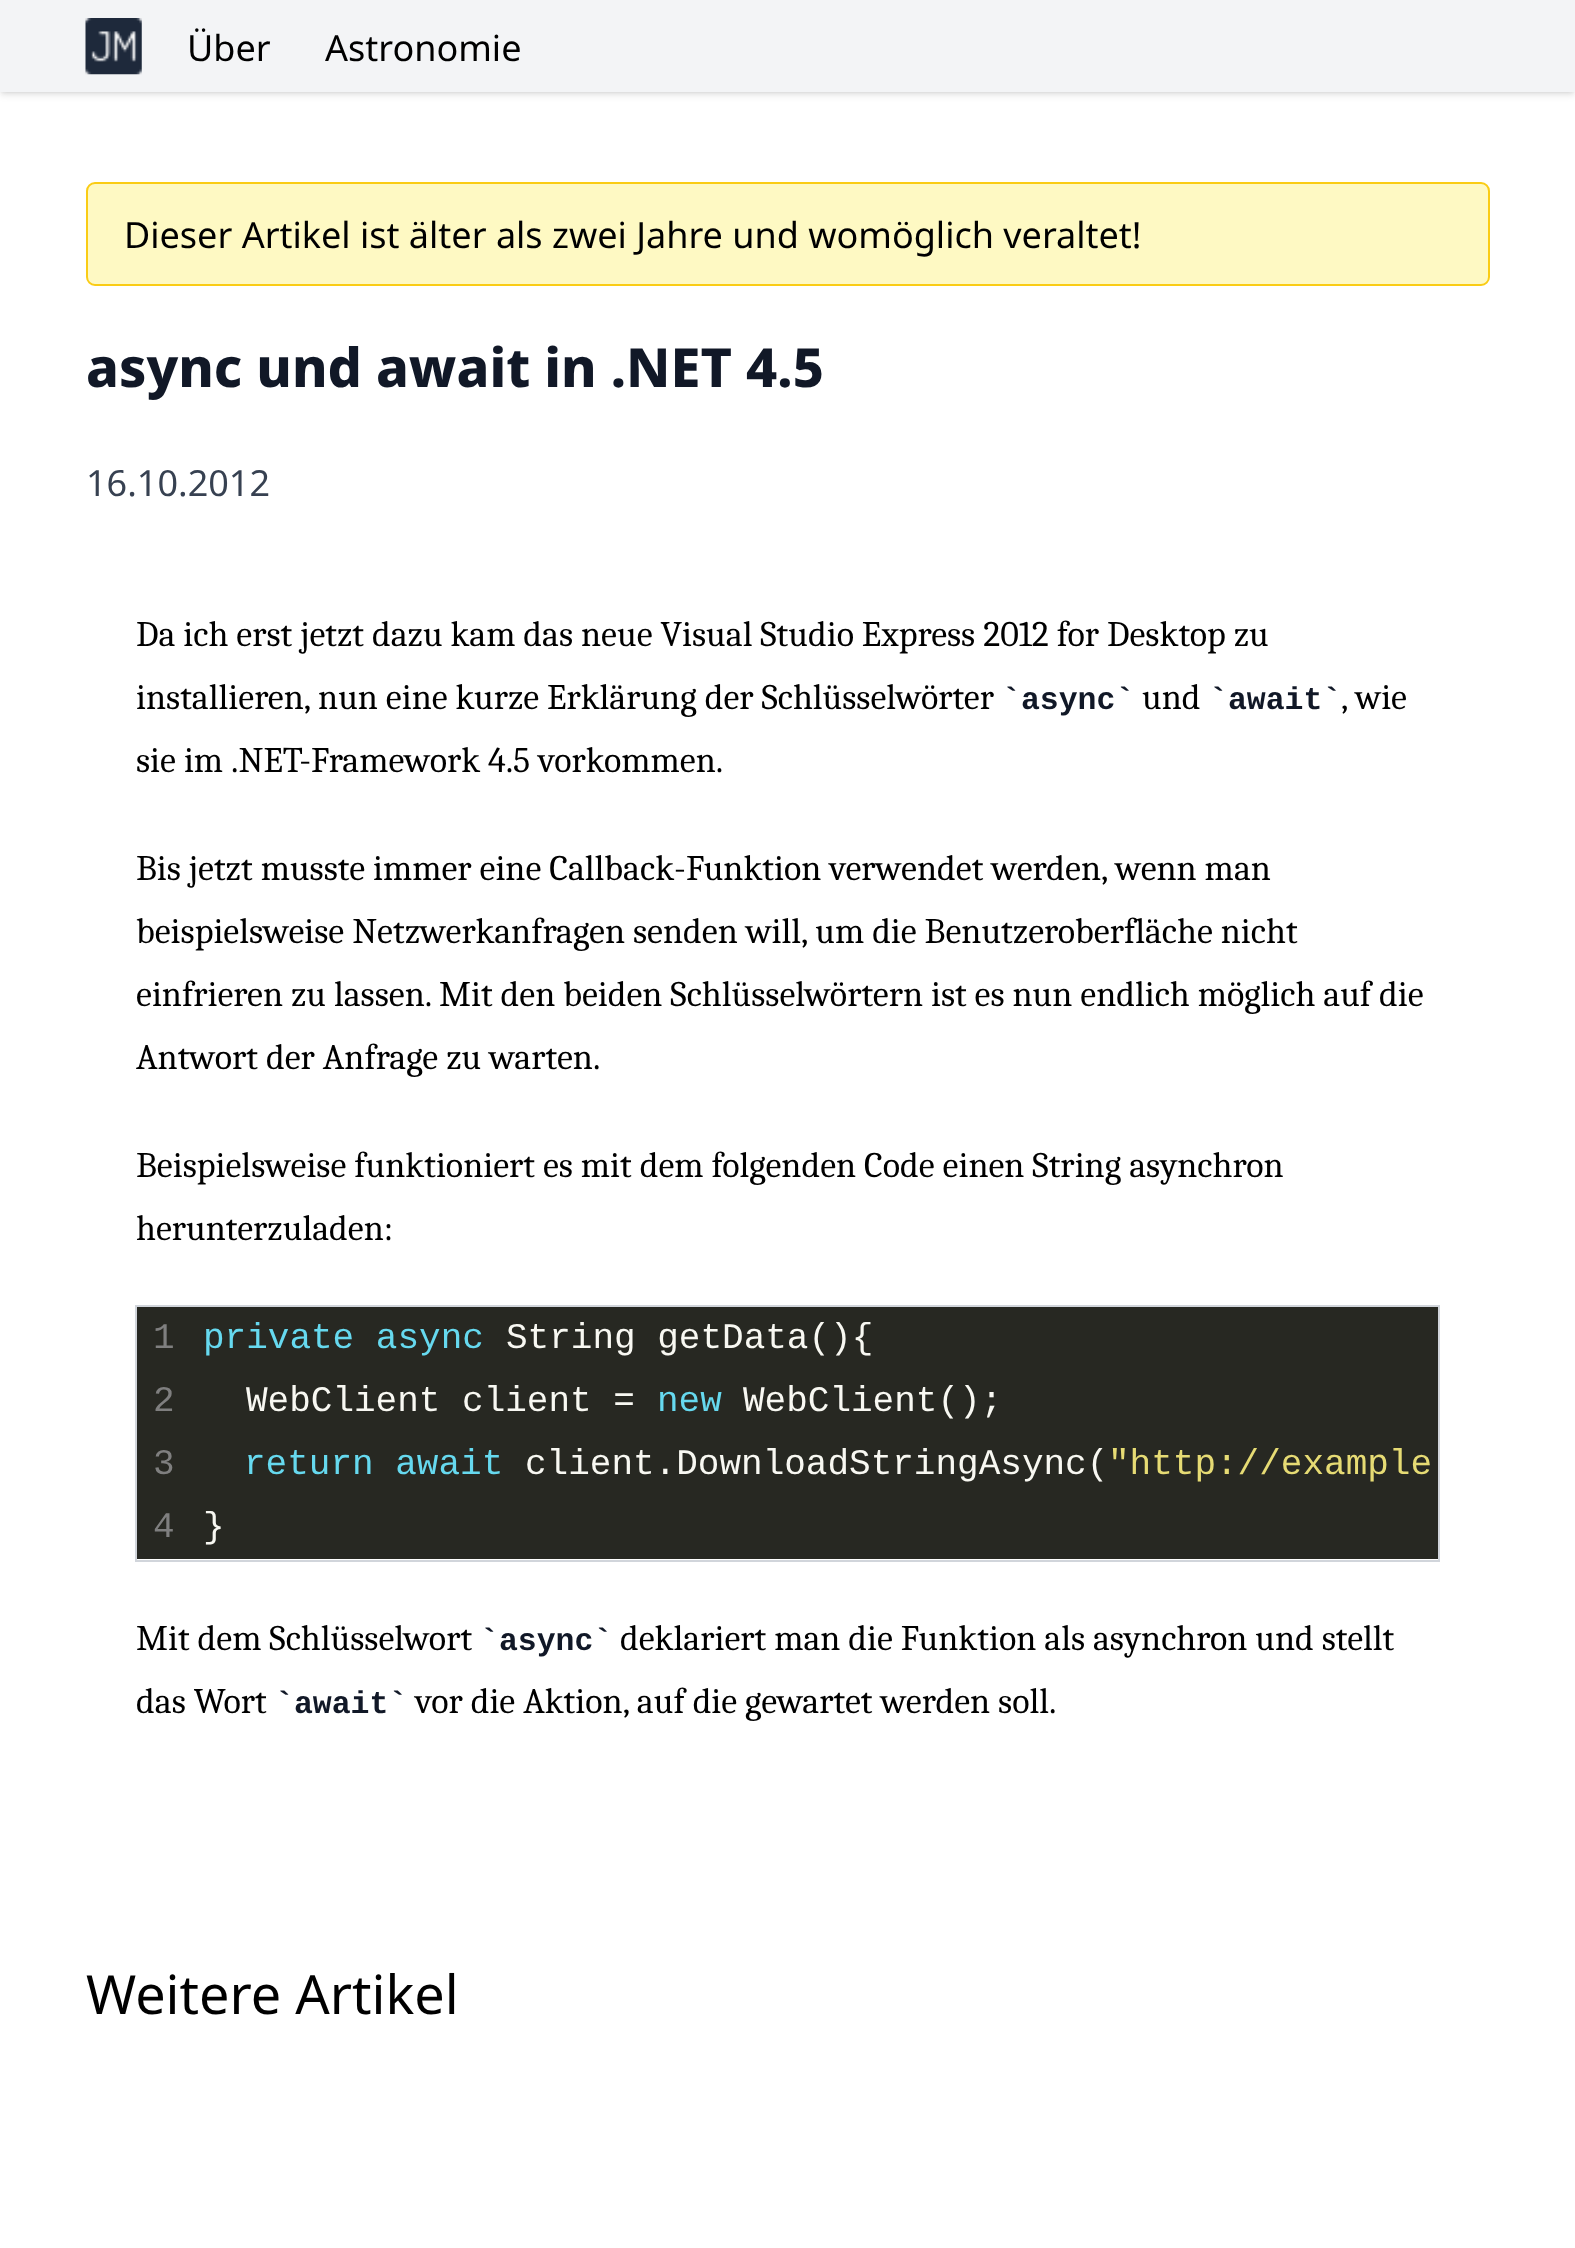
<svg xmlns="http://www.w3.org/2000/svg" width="1575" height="2248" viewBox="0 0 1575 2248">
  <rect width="100%" height="100%" fill="#fff"/>
  <path d="M2 5h1571v87H2z" fill="#0000001a" filter="blur(2px)"/>
  <path d="M0 2h1575v93H0z" fill="#0000001a" filter="blur(3.5px)"/>
  <path d="M0 0h1575v92H0z" fill="#f3f4f6"/>
  <image x="85" y="18" width="57" height="57" href="img/1.png"/>
  <rect x="87" y="183" width="1402" height="102" rx="8" fill="#fef9c3" stroke="#facc15" stroke-width="2"/>
  <path d="M136 1306h1303v255H136z" fill="none" stroke="#d1d5db" stroke-width="2"/>
  <path d="M137 1307h1301v252H137z" fill="#272822"/>
  <g font-family="Noto Sans" font-size="36" fill="#000">
    <text x="187" y="61">Über</text>
    <text x="325" y="61">Astronomie</text>
    <text x="124" y="248">Dieser Artikel ist älter als zwei Jahre und womöglich veraltet!</text>
  </g>
  <text x="86" y="387" font-family="Noto Sans" font-size="54" font-weight="800" fill="#111827">async und await in .NET 4.5</text>
  <text x="86" y="496" font-family="Noto Sans" font-size="36" fill="#374151">16.10.2012</text>
  <g font-family="Caladea" font-size="36" fill="#000">
    <text x="136" y="646">Da ich erst jetzt dazu kam das neue Visual Studio Express 2012 for Desktop zu</text>
    <text x="136" y="709">installieren, nun eine kurze Erklärung der Schlüsselwörter</text>
  </g>
  <text x="1002" y="709" font-family="Liberation Mono" font-size="31.5" font-weight="bold" fill="#111827">`async`</text>
  <text x="1142" y="709" font-family="Caladea" font-size="36" fill="#000">und</text>
  <text x="1209" y="709" font-family="Liberation Mono" font-size="31.5" font-weight="bold" fill="#111827">`await`</text>
  <g font-family="Caladea" font-size="36" fill="#000">
    <text x="1341" y="709">, wie</text>
    <text x="136" y="772">sie im .NET-Framework 4.5 vorkommen.</text>
    <text x="136" y="880">Bis jetzt musste immer eine Callback-Funktion verwendet werden, wenn man</text>
    <text x="136" y="943">beispielsweise Netzwerkanfragen senden will, um die Benutzeroberfläche nicht</text>
    <text x="136" y="1006">einfrieren zu lassen. Mit den beiden Schlüsselwörtern ist es nun endlich möglich auf die</text>
    <text x="136" y="1069">Antwort der Anfrage zu warten.</text>
    <text x="136" y="1177">Beispielsweise funktioniert es mit dem folgenden Code einen String asynchron</text>
    <text x="136" y="1240">herunterzuladen:</text>
  </g>
  <text x="153" y="1348" font-family="Liberation Mono" font-size="36" fill="#7f7f7f">1</text>
  <text x="203" y="1348" font-family="Liberation Mono" font-size="36" fill="#66d9ef">private async</text>
  <text x="506" y="1348" font-family="Liberation Mono" font-size="36" fill="#f8f8f2">String getData(){</text>
  <text x="153" y="1411" font-family="Liberation Mono" font-size="36" fill="#7f7f7f">2</text>
  <text x="246" y="1411" font-family="Liberation Mono" font-size="36" fill="#f8f8f2">WebClient client =</text>
  <text x="657" y="1411" font-family="Liberation Mono" font-size="36" fill="#66d9ef">new</text>
  <text x="743" y="1411" font-family="Liberation Mono" font-size="36" fill="#f8f8f2">WebClient();</text>
  <text x="153" y="1474" font-family="Liberation Mono" font-size="36" fill="#7f7f7f">3</text>
  <text x="244" y="1474" font-family="Liberation Mono" font-size="36" fill="#66d9ef">return await</text>
  <text x="525" y="1474" font-family="Liberation Mono" font-size="36" fill="#f8f8f2">client.DownloadStringAsync(</text>
  <text x="1108" y="1474" font-family="Liberation Mono" font-size="36" fill="#e6db74">"http://example</text>
  <text x="153" y="1537" font-family="Liberation Mono" font-size="36" fill="#7f7f7f">4</text>
  <text x="203" y="1537" font-family="Liberation Mono" font-size="36" fill="#f8f8f2">}</text>
  <text x="136" y="1650" font-family="Caladea" font-size="36" fill="#000">Mit dem Schlüsselwort</text>
  <text x="480" y="1650" font-family="Liberation Mono" font-size="31.5" font-weight="bold" fill="#111827">`async`</text>
  <g font-family="Caladea" font-size="36" fill="#000">
    <text x="620" y="1650">deklariert man die Funktion als asynchron und stellt</text>
    <text x="136" y="1713">das Wort</text>
  </g>
  <text x="275" y="1713" font-family="Liberation Mono" font-size="31.5" font-weight="bold" fill="#111827">`await`</text>
  <text x="415" y="1713" font-family="Caladea" font-size="36" fill="#000">vor die Aktion, auf die gewartet werden soll.</text>
  <text x="86" y="2014" font-family="Noto Sans" font-size="54" fill="#000">Weitere Artikel</text>
</svg>
